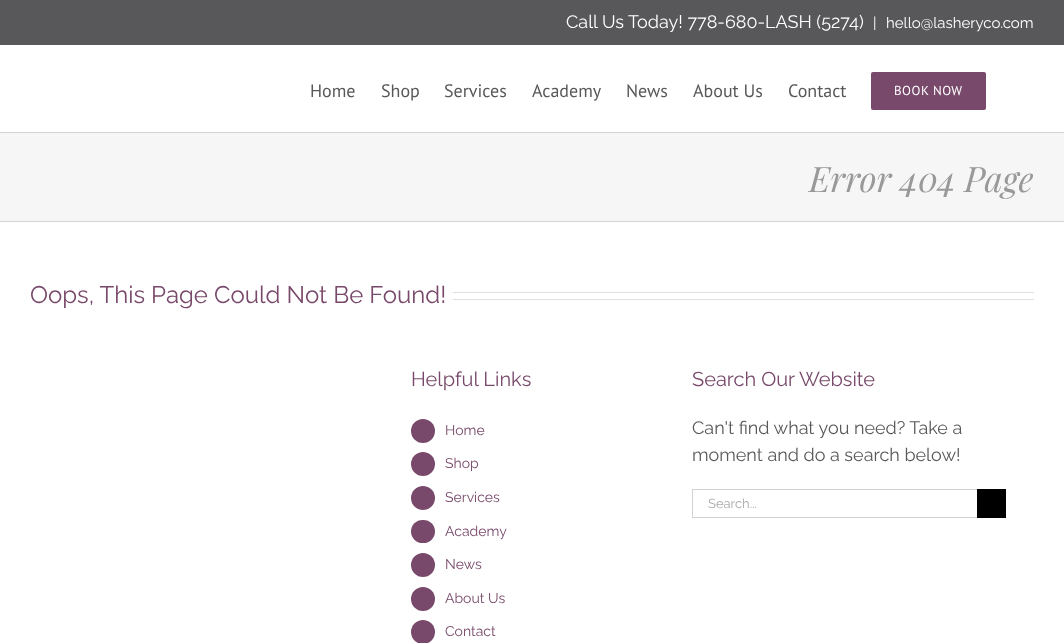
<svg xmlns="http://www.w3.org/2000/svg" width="1064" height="643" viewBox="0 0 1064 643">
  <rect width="100%" height="100%" fill="#fff"/>
  <path d="M0 0h1064v45H0z" fill="#58585a"/>
  <rect x="871" y="72" width="115" height="38" rx="2" fill="#78496a"/>
  <path d="M0 133h1064v88H0z" fill="#f6f6f6"/>
  <path d="M0 132h1064v1H0z" fill="#d2d3d4"/>
  <path d="M0 221h1064v1H0z" fill="#d2d3d4"/>
  <path d="M453 292h581v1H453z" fill="#e0dede"/>
  <path d="M453 299h581v1H453z" fill="#e0dede"/>
  <circle cx="423" cy="431" r="12" fill="#78496a"/>
  <circle cx="423" cy="464" r="12" fill="#78496a"/>
  <circle cx="423" cy="498" r="12" fill="#78496a"/>
  <rect x="411" y="520" width="24" height="23" rx="11.5" fill="#78496a"/>
  <circle cx="423" cy="565" r="12" fill="#78496a"/>
  <circle cx="423" cy="599" r="12" fill="#78496a"/>
  <circle cx="423" cy="632" r="12" fill="#78496a"/>
  <path d="M692 489h285v1H692z" fill="#d2d2d2"/>
  <path d="M692 517h285v1H692z" fill="#d2d2d2"/>
  <path d="M692 489h1v29H692z" fill="#d2d2d2"/>
  <path d="M977 489h29v29H977z" fill="#000"/>
  <text x="566" y="28" font-family="Raleway" font-size="18" fill="#fff">Call Us Today! 778-680-LASH (5274)</text>
  <g font-family="Raleway" font-size="15" fill="#fff">
    <text x="873" y="28">|</text>
    <text x="886" y="28">hello@lasheryco.com</text>
  </g>
  <g font-family="PT Sans" font-size="18" fill="#58585a">
    <text x="310" y="97">Home</text>
    <text x="381" y="97">Shop</text>
    <text x="444" y="97">Services</text>
    <text x="532" y="97">Academy</text>
    <text x="626" y="97">News</text>
    <text x="693" y="97">About Us</text>
    <text x="788" y="97">Contact</text>
  </g>
  <text x="894" y="95" font-family="PT Sans" font-size="13" letter-spacing="0.5" fill="#fff">BOOK NOW</text>
  <text x="809" y="192" font-family="Playfair Display" font-size="35" font-style="italic" fill="#999">Error 404 Page</text>
  <text x="30" y="303" font-family="Raleway" font-size="24" fill="#78496a">Oops, This Page Could Not Be Found!</text>
  <text x="411" y="386" font-family="Raleway" font-size="20" fill="#78496a">Helpful Links</text>
  <g font-family="Raleway" font-size="14" fill="#78496a">
    <text x="445" y="435">Home</text>
    <text x="445" y="468">Shop</text>
    <text x="445" y="502">Services</text>
    <text x="445" y="536">Academy</text>
    <text x="445" y="569">News</text>
    <text x="445" y="603">About Us</text>
    <text x="445" y="636">Contact</text>
  </g>
  <text x="692" y="386" font-family="Raleway" font-size="20" fill="#78496a">Search Our Website</text>
  <g font-family="Raleway" font-size="18" fill="#58585a">
    <text x="692" y="434">Can't find what you need? Take a</text>
    <text x="692" y="461">moment and do a search below!</text>
  </g>
  <text x="708" y="508" font-family="Raleway" font-size="13" fill="#aaa9a9">Search...</text>
</svg>
